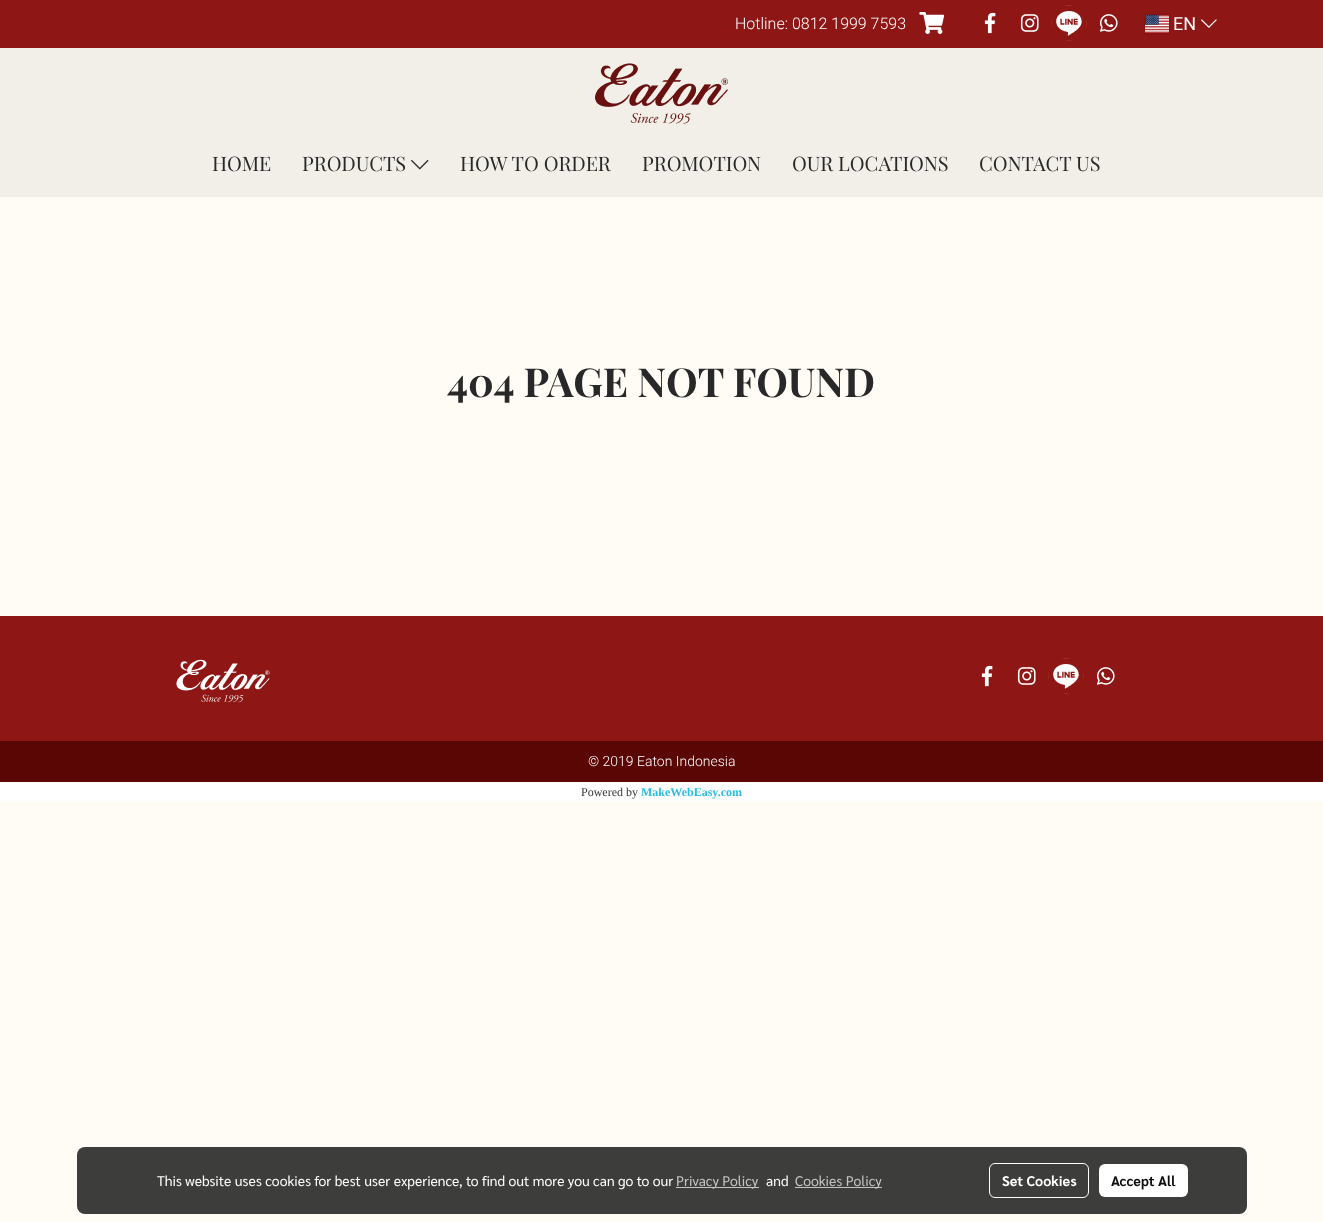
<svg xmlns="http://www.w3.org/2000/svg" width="1323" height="1222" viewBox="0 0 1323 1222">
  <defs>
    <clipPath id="clip1"><path d="M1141 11H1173V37H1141ZM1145 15H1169V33H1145Z" clip-rule="evenodd"/></clipPath>
  </defs>
  <rect width="100%" height="100%" fill="#fffcf5"/>
  <path d="M0 48h1323v149H0z" fill="#f1efe8"/>
  <path d="M0 0h1323v48H0z" fill="#8e1715"/>
  <image x="919" y="12" width="26" height="22" href="img/1.png"/>
  <image x="984" y="12" width="12" height="22" href="img/2.png"/>
  <image x="1020" y="14" width="19" height="18" href="img/3.png"/>
  <image x="1051" y="5" width="36" height="36" href="img/4.png"/>
  <image x="1099" y="14" width="19" height="18" href="img/5.png"/>
  <g clip-path="url(#clip1)">
    <path d="M1145 15h24v18H1145z" fill="#00000040" filter="blur(1px)"/>
  </g>
  <image x="1145" y="15" width="24" height="18" href="img/6.png"/>
  <image x="1201" y="19" width="16" height="9" href="img/7.png"/>
  <image x="595" y="63" width="133" height="61" href="img/8.png"/>
  <image x="411" y="160" width="18" height="10" href="img/9.png"/>
  <path d="M0 616h1323v125H0z" fill="#8e1715"/>
  <image x="176" y="659" width="94" height="44" href="img/10.png"/>
  <image x="981" y="665" width="12" height="22" href="img/2.png"/>
  <image x="1017" y="667" width="19" height="18" href="img/3.png"/>
  <image x="1048" y="658" width="36" height="36" href="img/4.png"/>
  <image x="1096" y="667" width="19" height="18" href="img/5.png"/>
  <path d="M0 741h1323v41H0z" fill="#590605"/>
  <path d="M0 782h1323v20H0z" fill="#fff"/>
  <rect x="77" y="1147" width="1170" height="67" rx="8" fill="#3d3d3b"/>
  <path d="M676 1187h83v1H676z" fill="#c5c5c5"/>
  <path d="M795 1187h87v1H795z" fill="#c5c5c5"/>
  <rect x="989.5" y="1163.5" width="99" height="34" rx="5.5" fill="none" stroke="#fff"/>
  <rect x="1099" y="1164" width="89" height="33" rx="6" fill="#fff"/>
  <text x="735" y="29" font-family="Roboto" font-size="16" font-weight="300" fill="#fff">Hotline: 0812 1999 7593</text>
  <text x="1173" y="30" font-family="Roboto" font-size="18" fill="#fff">EN</text>
  <g font-family="Playfair Display" font-size="20" fill="#282828">
    <text x="212" y="171">HOME</text>
    <text x="302" y="171">PRODUCTS</text>
    <text x="460" y="171">HOW TO ORDER</text>
    <text x="642" y="171">PROMOTION</text>
    <text x="792" y="171">OUR LOCATIONS</text>
    <text x="979" y="171">CONTACT US</text>
  </g>
  <text x="447" y="397" font-family="Playfair Display" font-size="40" font-weight="bold" fill="#282828">404 PAGE NOT FOUND</text>
  <text x="588" y="766" font-family="Roboto" font-size="14" font-weight="300" fill="#fff">© 2019 Eaton Indonesia</text>
  <text x="581" y="796" font-family="Liberation Serif" font-size="12" fill="#353535">Powered by</text>
  <text x="641" y="796" font-family="Liberation Serif" font-size="12" font-weight="bold" fill="#28bee3">MakeWebEasy.com</text>
  <text x="157" y="1186" font-family="Sarabun" font-size="14" fill="#fff">This website uses cookies for best user experience, to find out more you can go to our</text>
  <text x="676" y="1186" font-family="Sarabun" font-size="14" fill="#c5c5c5">Privacy Policy</text>
  <text x="766" y="1186" font-family="Sarabun" font-size="14" fill="#fff">and</text>
  <text x="795" y="1186" font-family="Sarabun" font-size="14" fill="#c5c5c5">Cookies Policy</text>
  <text x="1002" y="1186" font-family="Sarabun" font-size="14" font-weight="bold" fill="#fff">Set Cookies</text>
  <text x="1111" y="1186" font-family="Sarabun" font-size="14" font-weight="bold" fill="#0d0d0c">Accept All</text>
</svg>
